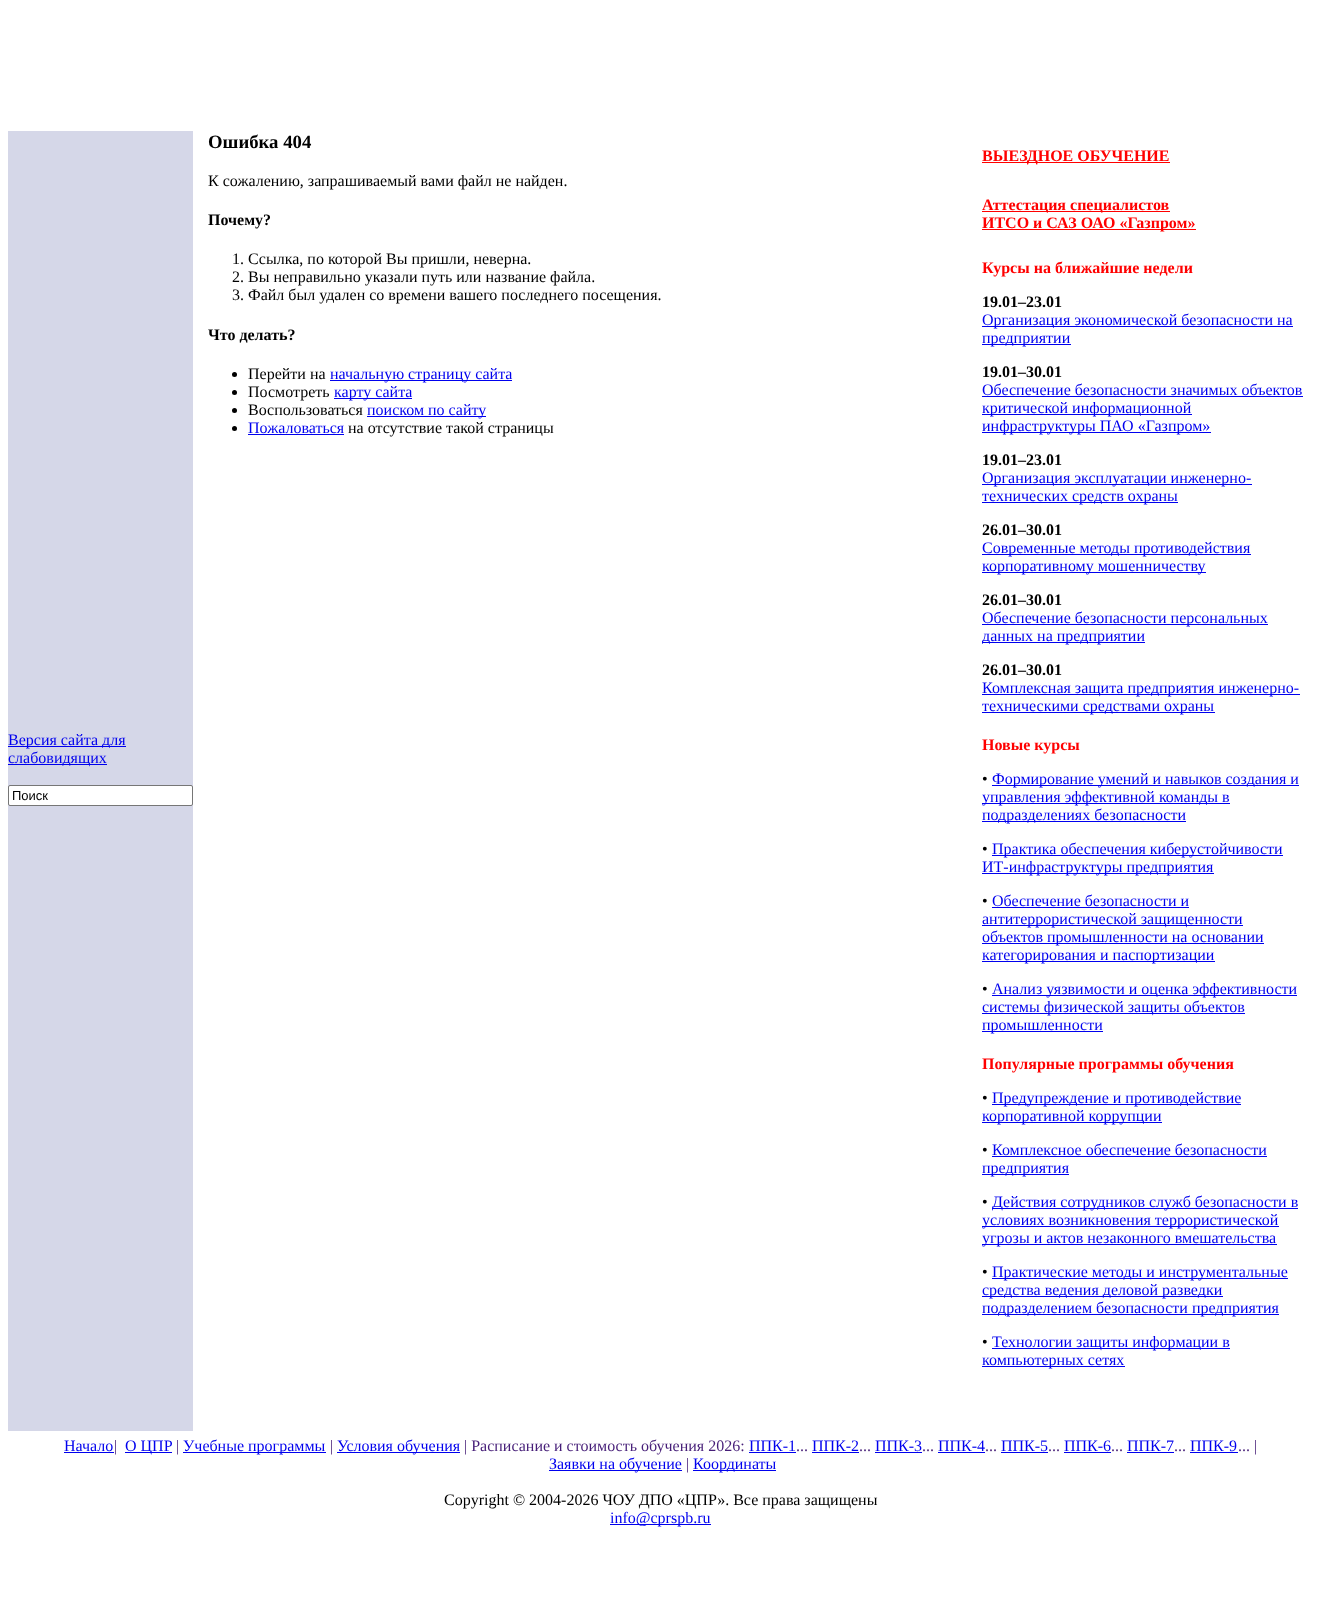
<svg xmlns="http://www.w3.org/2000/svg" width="1321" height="1606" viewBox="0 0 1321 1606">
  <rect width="100%" height="100%" fill="#fff"/>
  <path d="M8 131h185v1300H8z" fill="#d5d7e8"/>
  <path d="M8 746h118v1H8z" fill="#00e"/>
  <path d="M8 764h99v1H8z" fill="#00e"/>
  <rect x="8.5" y="785.5" width="184" height="20" rx="1.5" fill="#fff" stroke="#767676"/>
  <circle cx="234.5" cy="374.5" r="2.5" fill="#000"/>
  <path d="M330 380h182v1H330z" fill="#00e"/>
  <circle cx="234.5" cy="392.5" r="2.5" fill="#000"/>
  <path d="M334 398h78v1H334z" fill="#00e"/>
  <circle cx="234.5" cy="410.5" r="2.5" fill="#000"/>
  <path d="M367 416h119v1H367z" fill="#00e"/>
  <circle cx="234.5" cy="428.5" r="2.5" fill="#000"/>
  <path d="M248 434h96v1H248z" fill="#00e"/>
  <path d="M982 162h188v1H982z" fill="#f00"/>
  <path d="M982 211h188v1H982z" fill="#f00"/>
  <path d="M982 229h214v1H982z" fill="#f00"/>
  <path d="M982 326h311v1H982z" fill="#00e"/>
  <path d="M982 344h89v1H982z" fill="#00e"/>
  <path d="M982 396h321v1H982z" fill="#00e"/>
  <path d="M982 414h210v1H982z" fill="#00e"/>
  <path d="M982 432h229v1H982z" fill="#00e"/>
  <path d="M982 484h270v1H982z" fill="#00e"/>
  <path d="M982 502h196v1H982z" fill="#00e"/>
  <path d="M982 554h269v1H982z" fill="#00e"/>
  <path d="M982 572h224v1H982z" fill="#00e"/>
  <path d="M982 624h286v1H982z" fill="#00e"/>
  <path d="M982 642h163v1H982z" fill="#00e"/>
  <path d="M982 694h318v1H982z" fill="#00e"/>
  <path d="M982 712h233v1H982z" fill="#00e"/>
  <path d="M992 785h307v1H992z" fill="#00e"/>
  <path d="M982 803h248v1H982z" fill="#00e"/>
  <path d="M982 821h204v1H982z" fill="#00e"/>
  <path d="M992 855h291v1H992z" fill="#00e"/>
  <path d="M982 873h232v1H982z" fill="#00e"/>
  <path d="M992 907h197v1H992z" fill="#00e"/>
  <path d="M982 925h261v1H982z" fill="#00e"/>
  <path d="M982 943h282v1H982z" fill="#00e"/>
  <path d="M982 961h233v1H982z" fill="#00e"/>
  <path d="M992 995h305v1H992z" fill="#00e"/>
  <path d="M982 1013h263v1H982z" fill="#00e"/>
  <path d="M982 1031h121v1H982z" fill="#00e"/>
  <path d="M992 1104h249v1H992z" fill="#00e"/>
  <path d="M982 1122h180v1H982z" fill="#00e"/>
  <path d="M992 1156h275v1H992z" fill="#00e"/>
  <path d="M982 1174h87v1H982z" fill="#00e"/>
  <path d="M992 1208h306v1H992z" fill="#00e"/>
  <path d="M982 1226h297v1H982z" fill="#00e"/>
  <path d="M982 1244h295v1H982z" fill="#00e"/>
  <path d="M992 1278h296v1H992z" fill="#00e"/>
  <path d="M982 1296h241v1H982z" fill="#00e"/>
  <path d="M982 1314h297v1H982z" fill="#00e"/>
  <path d="M992 1348h238v1H992z" fill="#00e"/>
  <path d="M982 1366h143v1H982z" fill="#00e"/>
  <path d="M64 1452h50v1H64z" fill="#00e"/>
  <path d="M125 1452h47v1H125z" fill="#00e"/>
  <path d="M183 1452h143v1H183z" fill="#00e"/>
  <path d="M337 1452h123v1H337z" fill="#00e"/>
  <path d="M749 1452h47v1H749z" fill="#00e"/>
  <path d="M812 1452h47v1H812z" fill="#00e"/>
  <path d="M875 1452h47v1H875z" fill="#00e"/>
  <path d="M938 1452h47v1H938z" fill="#00e"/>
  <path d="M1001 1452h47v1H1001z" fill="#00e"/>
  <path d="M1064 1452h47v1H1064z" fill="#00e"/>
  <path d="M1127 1452h47v1H1127z" fill="#00e"/>
  <path d="M1190 1452h48v1H1190z" fill="#00e"/>
  <path d="M549 1470h133v1H549z" fill="#00e"/>
  <path d="M693 1470h83v1H693z" fill="#00e"/>
  <path d="M610 1524h101v1H610z" fill="#00e"/>
  <g font-family="Liberation Serif" font-size="16" fill="#00e">
    <text x="8" y="745">Версия сайта для</text>
    <text x="8" y="763">слабовидящих</text>
  </g>
  <text x="12" y="800" font-family="Liberation Sans" font-size="13" fill="#000">Поиск</text>
  <text x="208" y="148" font-family="Liberation Serif" font-size="18.75" font-weight="bold" fill="#000">Ошибка 404</text>
  <text x="208" y="186" font-family="Liberation Serif" font-size="16" fill="#000">К сожалению, запрашиваемый вами файл не найден.</text>
  <text x="208" y="225" font-family="Liberation Serif" font-size="16" font-weight="bold" fill="#000">Почему?</text>
  <g font-family="Liberation Serif" font-size="16" fill="#000">
    <text x="232" y="264">1. Ссылка, по которой Вы пришли, неверна.</text>
    <text x="232" y="282">2. Вы неправильно указали путь или название файла.</text>
    <text x="232" y="300">3. Файл был удален со времени вашего последнего посещения.</text>
  </g>
  <text x="208" y="340" font-family="Liberation Serif" font-size="16" font-weight="bold" fill="#000">Что делать?</text>
  <text x="248" y="379" font-family="Liberation Serif" font-size="16" fill="#000">Перейти на</text>
  <text x="330" y="379" font-family="Liberation Serif" font-size="16" fill="#00e">начальную страницу сайта</text>
  <text x="248" y="397" font-family="Liberation Serif" font-size="16" fill="#000">Посмотреть</text>
  <text x="334" y="397" font-family="Liberation Serif" font-size="16" fill="#00e">карту сайта</text>
  <text x="248" y="415" font-family="Liberation Serif" font-size="16" fill="#000">Воспользоваться</text>
  <g font-family="Liberation Serif" font-size="16" fill="#00e">
    <text x="367" y="415">поиском по сайту</text>
    <text x="248" y="433">Пожаловаться</text>
  </g>
  <text x="348" y="433" font-family="Liberation Serif" font-size="16" fill="#000">на отсутствие такой страницы</text>
  <g font-family="Liberation Serif" font-size="16" font-weight="bold" fill="#f00">
    <text x="982" y="161">ВЫЕЗДНОЕ ОБУЧЕНИЕ</text>
    <text x="982" y="210">Аттестация специалистов</text>
    <text x="982" y="228">ИТСО и САЗ ОАО «Газпром»</text>
    <text x="982" y="273">Курсы на ближайшие недели</text>
  </g>
  <text x="982" y="307" font-family="Liberation Serif" font-size="16" font-weight="bold" fill="#000">19.01–23.01</text>
  <g font-family="Liberation Serif" font-size="16" fill="#00e">
    <text x="982" y="325">Организация экономической безопасности на</text>
    <text x="982" y="343">предприятии</text>
  </g>
  <text x="982" y="377" font-family="Liberation Serif" font-size="16" font-weight="bold" fill="#000">19.01–30.01</text>
  <g font-family="Liberation Serif" font-size="16" fill="#00e">
    <text x="982" y="395">Обеспечение безопасности значимых объектов</text>
    <text x="982" y="413">критической информационной</text>
    <text x="982" y="431">инфраструктуры ПАО «Газпром»</text>
  </g>
  <text x="982" y="465" font-family="Liberation Serif" font-size="16" font-weight="bold" fill="#000">19.01–23.01</text>
  <g font-family="Liberation Serif" font-size="16" fill="#00e">
    <text x="982" y="483">Организация эксплуатации инженерно-</text>
    <text x="982" y="501">технических средств охраны</text>
  </g>
  <text x="982" y="535" font-family="Liberation Serif" font-size="16" font-weight="bold" fill="#000">26.01–30.01</text>
  <g font-family="Liberation Serif" font-size="16" fill="#00e">
    <text x="982" y="553">Современные методы противодействия</text>
    <text x="982" y="571">корпоративному мошенничеству</text>
  </g>
  <text x="982" y="605" font-family="Liberation Serif" font-size="16" font-weight="bold" fill="#000">26.01–30.01</text>
  <g font-family="Liberation Serif" font-size="16" fill="#00e">
    <text x="982" y="623">Обеспечение безопасности персональных</text>
    <text x="982" y="641">данных на предприятии</text>
  </g>
  <text x="982" y="675" font-family="Liberation Serif" font-size="16" font-weight="bold" fill="#000">26.01–30.01</text>
  <g font-family="Liberation Serif" font-size="16" fill="#00e">
    <text x="982" y="693">Комплексная защита предприятия инженерно-</text>
    <text x="982" y="711">техническими средствами охраны</text>
  </g>
  <text x="982" y="750" font-family="Liberation Serif" font-size="16" font-weight="bold" fill="#f00">Новые курсы</text>
  <text x="982" y="784" font-family="Liberation Serif" font-size="16" fill="#000">•</text>
  <g font-family="Liberation Serif" font-size="16" fill="#00e">
    <text x="992" y="784">Формирование умений и навыков создания и</text>
    <text x="982" y="802">управления эффективной команды в</text>
    <text x="982" y="820">подразделениях безопасности</text>
  </g>
  <text x="982" y="854" font-family="Liberation Serif" font-size="16" fill="#000">•</text>
  <g font-family="Liberation Serif" font-size="16" fill="#00e">
    <text x="992" y="854">Практика обеспечения киберустойчивости</text>
    <text x="982" y="872">ИТ-инфраструктуры предприятия</text>
  </g>
  <text x="982" y="906" font-family="Liberation Serif" font-size="16" fill="#000">•</text>
  <g font-family="Liberation Serif" font-size="16" fill="#00e">
    <text x="992" y="906">Обеспечение безопасности и</text>
    <text x="982" y="924">антитеррористической защищенности</text>
    <text x="982" y="942">объектов промышленности на основании</text>
    <text x="982" y="960">категорирования и паспортизации</text>
  </g>
  <text x="982" y="994" font-family="Liberation Serif" font-size="16" fill="#000">•</text>
  <g font-family="Liberation Serif" font-size="16" fill="#00e">
    <text x="992" y="994">Анализ уязвимости и оценка эффективности</text>
    <text x="982" y="1012">системы физической защиты объектов</text>
    <text x="982" y="1030">промышленности</text>
  </g>
  <text x="982" y="1069" font-family="Liberation Serif" font-size="16" font-weight="bold" fill="#f00">Популярные программы обучения</text>
  <text x="982" y="1103" font-family="Liberation Serif" font-size="16" fill="#000">•</text>
  <g font-family="Liberation Serif" font-size="16" fill="#00e">
    <text x="992" y="1103">Предупреждение и противодействие</text>
    <text x="982" y="1121">корпоративной коррупции</text>
  </g>
  <text x="982" y="1155" font-family="Liberation Serif" font-size="16" fill="#000">•</text>
  <g font-family="Liberation Serif" font-size="16" fill="#00e">
    <text x="992" y="1155">Комплексное обеспечение безопасности</text>
    <text x="982" y="1173">предприятия</text>
  </g>
  <text x="982" y="1207" font-family="Liberation Serif" font-size="16" fill="#000">•</text>
  <g font-family="Liberation Serif" font-size="16" fill="#00e">
    <text x="992" y="1207">Действия сотрудников служб безопасности в</text>
    <text x="982" y="1225">условиях возникновения террористической</text>
    <text x="982" y="1243">угрозы и актов незаконного вмешательства</text>
  </g>
  <text x="982" y="1277" font-family="Liberation Serif" font-size="16" fill="#000">•</text>
  <g font-family="Liberation Serif" font-size="16" fill="#00e">
    <text x="992" y="1277">Практические методы и инструментальные</text>
    <text x="982" y="1295">средства ведения деловой разведки</text>
    <text x="982" y="1313">подразделением безопасности предприятия</text>
  </g>
  <text x="982" y="1347" font-family="Liberation Serif" font-size="16" fill="#000">•</text>
  <g font-family="Liberation Serif" font-size="16" fill="#00e">
    <text x="992" y="1347">Технологии защиты информации в</text>
    <text x="982" y="1365">компьютерных сетях</text>
    <text x="64" y="1451">Начало</text>
  </g>
  <text x="114" y="1451" font-family="Liberation Serif" font-size="16" fill="#461e78">|</text>
  <text x="125" y="1451" font-family="Liberation Serif" font-size="16" fill="#00e">О ЦПР</text>
  <text x="176" y="1451" font-family="Liberation Serif" font-size="16" fill="#461e78">|</text>
  <text x="183" y="1451" font-family="Liberation Serif" font-size="16" fill="#00e">Учебные программы</text>
  <text x="330" y="1451" font-family="Liberation Serif" font-size="16" fill="#461e78">|</text>
  <text x="337" y="1451" font-family="Liberation Serif" font-size="16" fill="#00e">Условия обучения</text>
  <text x="464" y="1451" font-family="Liberation Serif" font-size="16" fill="#461e78">| Расписание и стоимость обучения 2026:</text>
  <text x="749" y="1451" font-family="Liberation Serif" font-size="16" fill="#00e">ППК-1</text>
  <text x="796" y="1451" font-family="Liberation Serif" font-size="16" fill="#461e78">...</text>
  <text x="812" y="1451" font-family="Liberation Serif" font-size="16" fill="#00e">ППК-2</text>
  <text x="859" y="1451" font-family="Liberation Serif" font-size="16" fill="#461e78">...</text>
  <text x="875" y="1451" font-family="Liberation Serif" font-size="16" fill="#00e">ППК-3</text>
  <text x="922" y="1451" font-family="Liberation Serif" font-size="16" fill="#461e78">...</text>
  <text x="938" y="1451" font-family="Liberation Serif" font-size="16" fill="#00e">ППК-4</text>
  <text x="985" y="1451" font-family="Liberation Serif" font-size="16" fill="#461e78">...</text>
  <text x="1001" y="1451" font-family="Liberation Serif" font-size="16" fill="#00e">ППК-5</text>
  <text x="1048" y="1451" font-family="Liberation Serif" font-size="16" fill="#461e78">...</text>
  <text x="1064" y="1451" font-family="Liberation Serif" font-size="16" fill="#00e">ППК-6</text>
  <text x="1111" y="1451" font-family="Liberation Serif" font-size="16" fill="#461e78">...</text>
  <text x="1127" y="1451" font-family="Liberation Serif" font-size="16" fill="#00e">ППК-7</text>
  <text x="1174" y="1451" font-family="Liberation Serif" font-size="16" fill="#461e78">...</text>
  <text x="1190" y="1451" font-family="Liberation Serif" font-size="16" fill="#00e">ППК-9</text>
  <text x="1238" y="1451" font-family="Liberation Serif" font-size="16" fill="#461e78">... |</text>
  <text x="549" y="1469" font-family="Liberation Serif" font-size="16" fill="#00e">Заявки на обучение</text>
  <text x="686" y="1469" font-family="Liberation Serif" font-size="16" fill="#461e78">|</text>
  <text x="693" y="1469" font-family="Liberation Serif" font-size="16" fill="#00e">Координаты</text>
  <text x="444" y="1505" font-family="Liberation Serif" font-size="16" fill="#000">Copyright © 2004-2026 ЧОУ ДПО «ЦПР». Все права защищены</text>
  <text x="610" y="1523" font-family="Liberation Serif" font-size="16" fill="#00e">info@cprspb.ru</text>
</svg>
